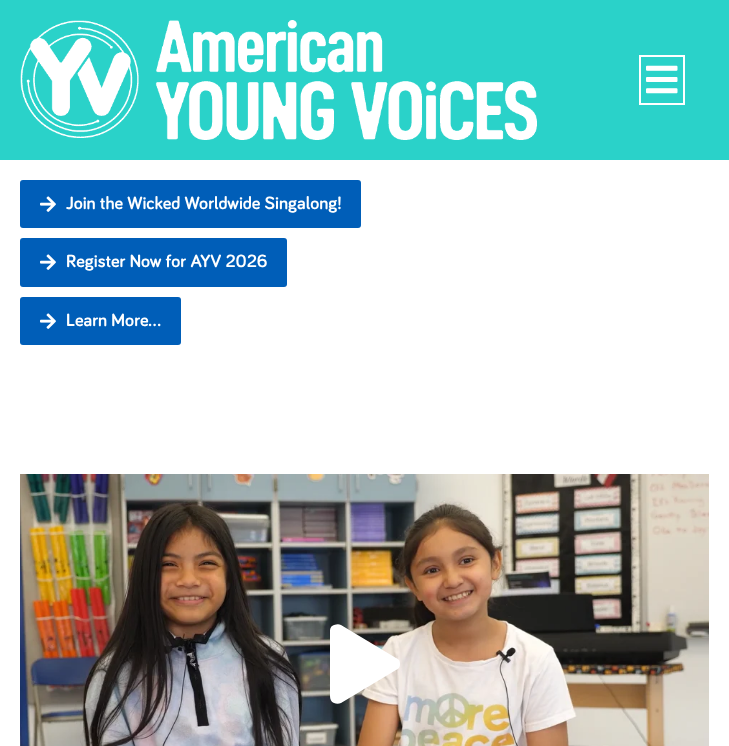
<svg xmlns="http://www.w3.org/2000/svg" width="729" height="746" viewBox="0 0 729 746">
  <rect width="100%" height="100%" fill="#fff"/>
  <path d="M0 0h729v160H0z" fill="#2ad2c9"/>
  <image x="20" y="20" width="517" height="120" href="img/1.png"/>
  <path d="M640 56h44v48H640z" fill="none" stroke="#fff" stroke-width="2"/>
  <image x="646" y="65" width="32" height="29" href="img/2.png"/>
  <rect x="20" y="180" width="341" height="48" rx="3" fill="#005eb8"/>
  <image x="40" y="196" width="16" height="16" href="img/3.png"/>
  <rect x="20" y="238" width="267" height="49" rx="3" fill="#005eb8"/>
  <image x="40" y="254" width="16" height="16" href="img/3.png"/>
  <rect x="20" y="297" width="161" height="48" rx="3" fill="#005eb8"/>
  <image x="40" y="313" width="16" height="16" href="img/3.png"/>
  <image x="20" y="474" width="689" height="272" href="img/4.png"/>
  <path d="M396 658C399 659 400 661 400 664C400 667 399 669 396 670L341 703C339 704 336 704 334 703C331 702 330 699 330 696V632C330 628 331 626 334 625C337 624 339 624 341 625Z" fill="#fff"/>
  <g font-family="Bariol" font-size="18.25" font-weight="bold" fill="#fff">
    <text x="66" y="209">Join the Wicked Worldwide Singalong!</text>
    <text x="66" y="267">Register Now for AYV 2026</text>
    <text x="66" y="326">Learn More...</text>
  </g>
</svg>
